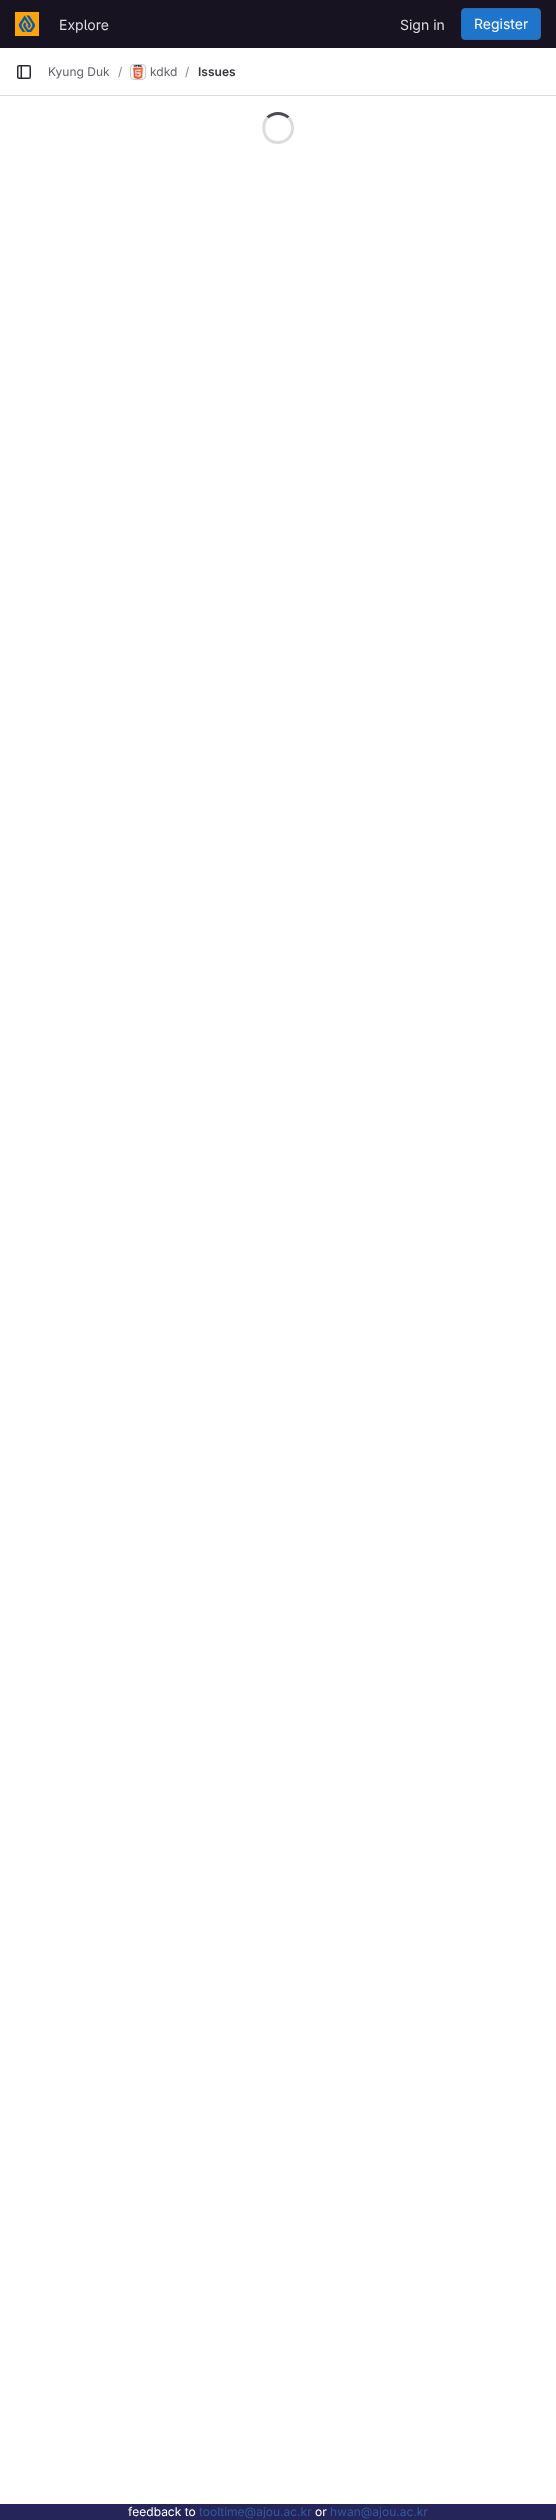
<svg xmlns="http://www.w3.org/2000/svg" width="556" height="2520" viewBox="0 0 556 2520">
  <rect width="100%" height="100%" fill="#fff"/>
  <path d="M0 0h556v48H0z" fill="#171321"/>
  <image x="15" y="12" width="24" height="24" href="img/1.png"/>
  <rect x="461.5" y="8.5" width="79" height="31" rx="3.5" fill="#1f75cb" stroke="#2f68b4"/>
  <path d="M0 95h556v1H0z" fill="#dcdcde"/>
  <image x="17" y="65" width="14" height="14" href="img/2.png"/>
  <rect x="130.5" y="64.5" width="15" height="15" rx="3.5" fill="none" stroke="#dcdcde"/>
  <image x="132" y="65" width="12" height="14" href="img/3.png"/>
  <rect x="130.5" y="64.5" width="15" height="15" rx="3.5" fill="none" stroke="#05050614"/>
  <path d="M267.5 117.5C273.5 112 282.5 112 288.5 117.5" fill="none" stroke="#4c4b51" stroke-width="3"/>
  <path d="M288.5 117.5C291 120.5 292.5 124 292.5 128C292.5 145.5 267 148 264 131C263 126 264.5 121 267.5 117.5" fill="none" stroke="#dcdcde" stroke-width="3"/>
  <path d="M0 2504h556v16H0z" fill="#25255a"/>
  <g font-family="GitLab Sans" font-size="14" fill="#dcdcde">
    <text x="59" y="30">Explore</text>
    <text x="400" y="30">Sign in</text>
  </g>
  <text x="474" y="29" font-family="GitLab Sans" font-size="14" fill="#fff">Register</text>
  <text x="48" y="76" font-family="GitLab Sans" font-size="12" fill="#626168">Kyung Duk</text>
  <text x="118" y="76" font-family="GitLab Sans" font-size="12" fill="#89888d">/</text>
  <text x="150" y="76" font-family="GitLab Sans" font-size="12" fill="#626168">kdkd</text>
  <text x="185" y="76" font-family="GitLab Sans" font-size="12" fill="#89888d">/</text>
  <text x="198" y="76" font-family="GitLab Sans" font-size="12" font-weight="600" fill="#3a383f">Issues</text>
  <text x="128" y="2516" font-family="GitLab Sans" font-size="12" fill="#fff">feedback to</text>
  <text x="199" y="2516" font-family="GitLab Sans" font-size="12" fill="#2f5ca0">tooltime@ajou.ac.kr</text>
  <text x="315" y="2516" font-family="GitLab Sans" font-size="12" fill="#fff">or</text>
  <text x="330" y="2516" font-family="GitLab Sans" font-size="12" fill="#2f5ca0">hwan@ajou.ac.kr</text>
</svg>
